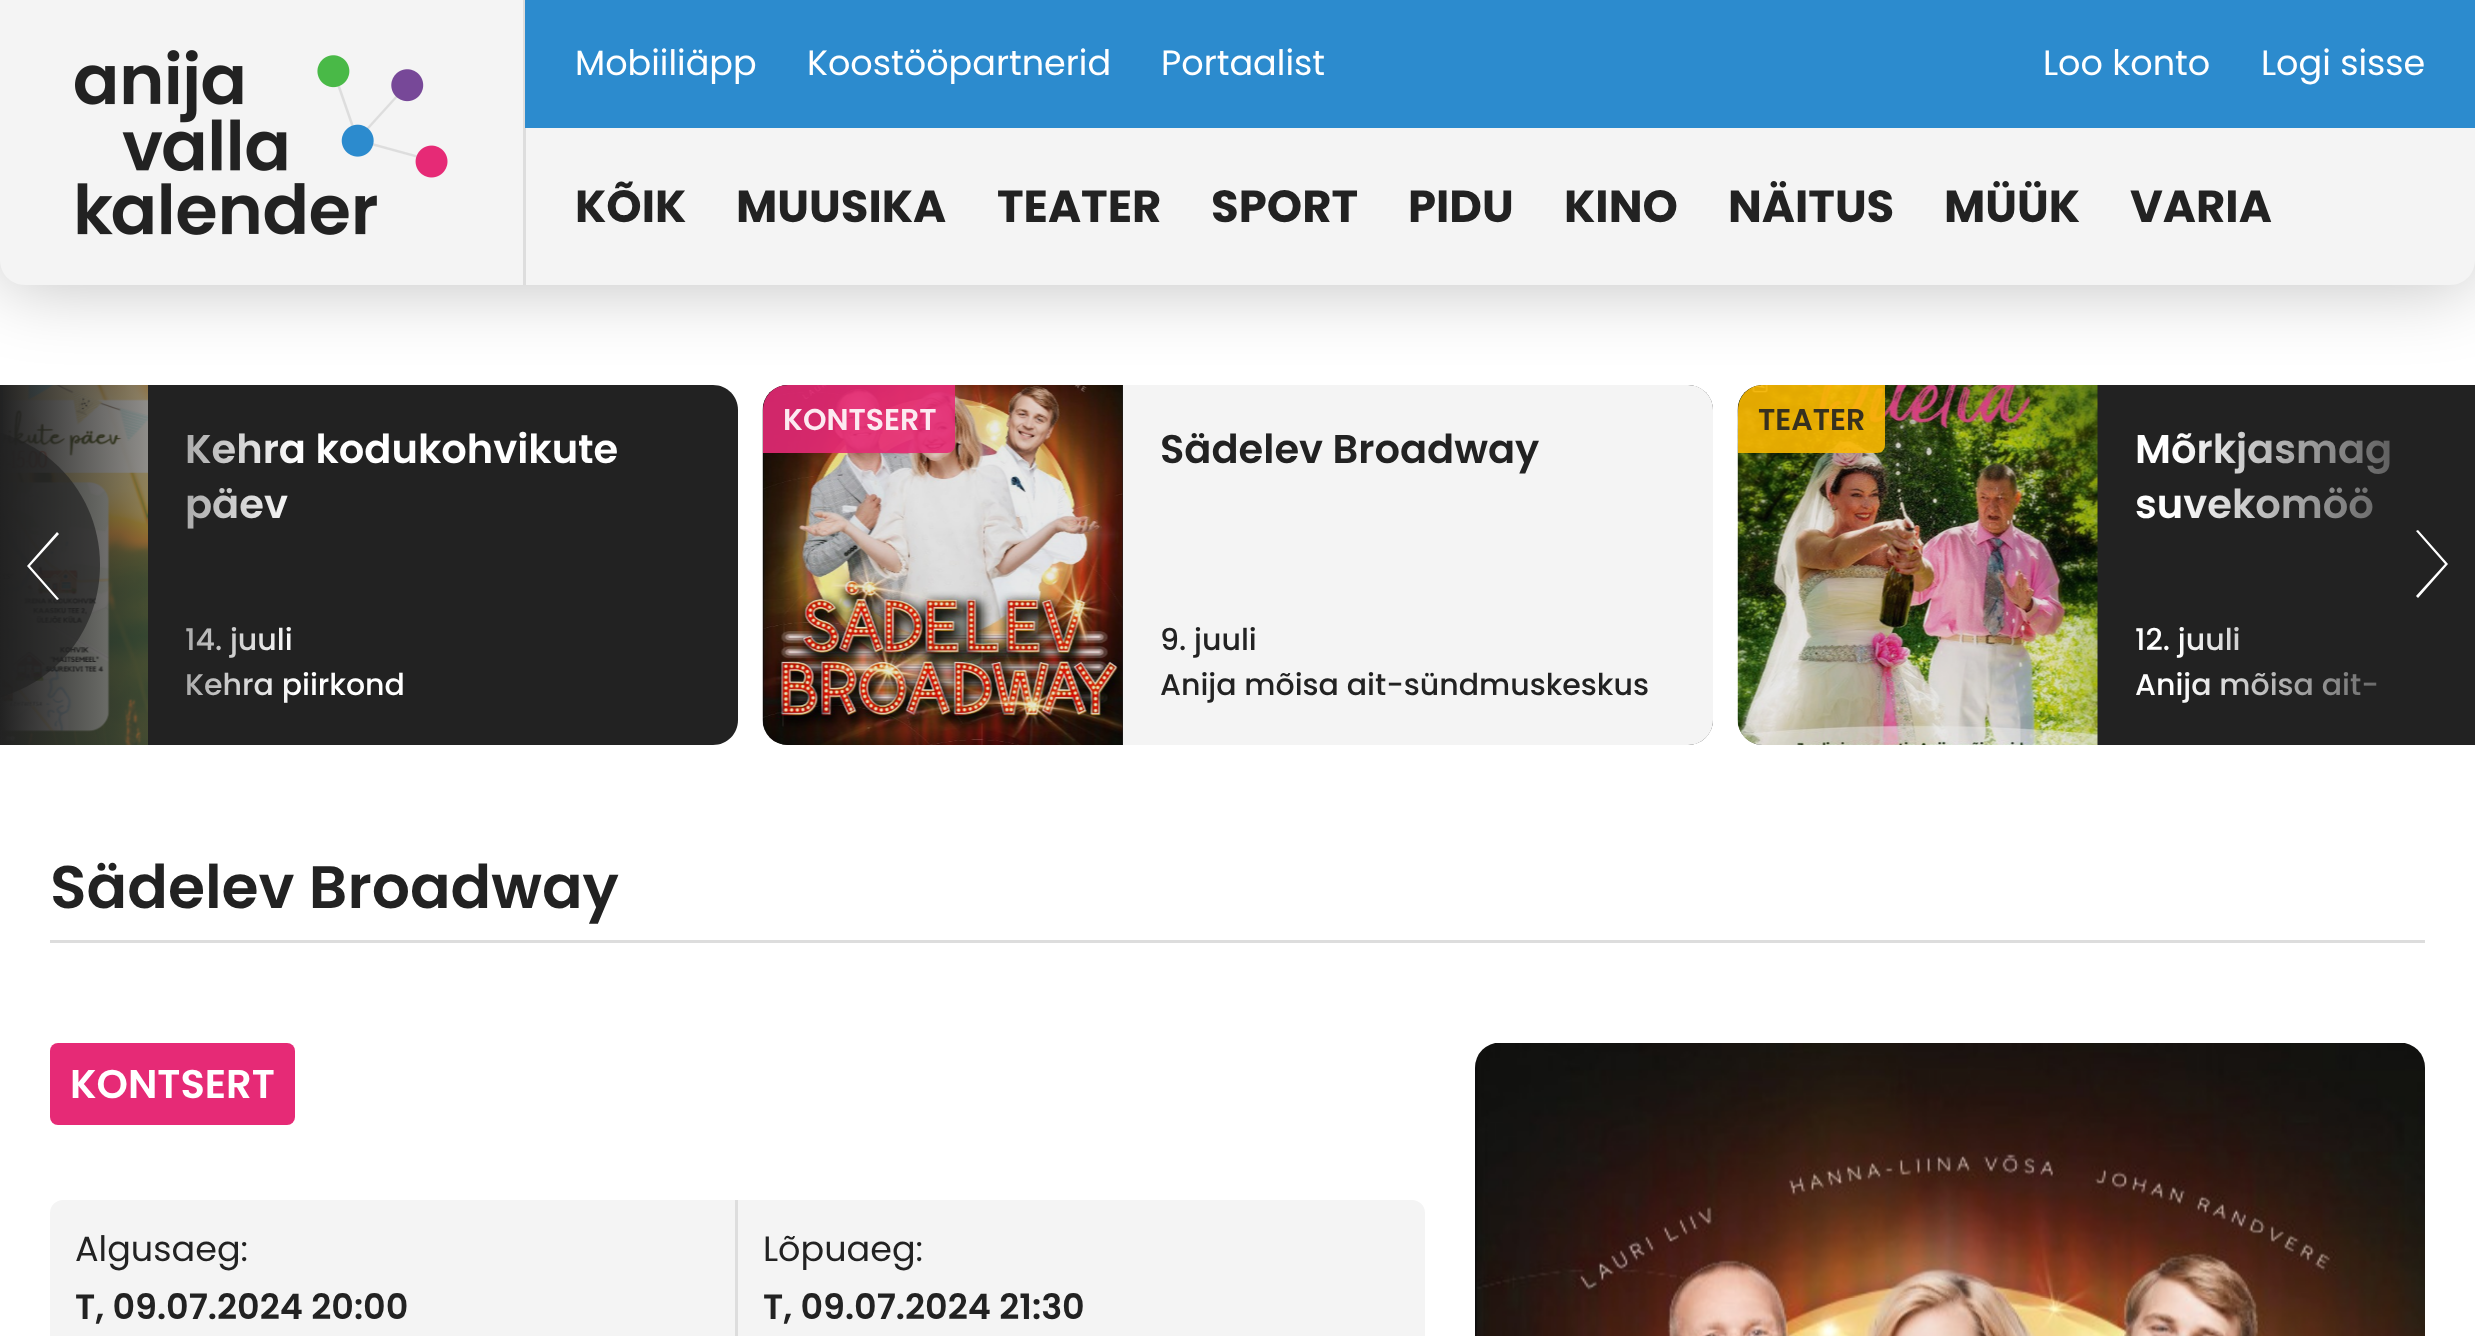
<svg xmlns="http://www.w3.org/2000/svg" width="2475" height="1336" viewBox="0 0 2475 1336">
  <defs>
    <linearGradient id="g1" gradientUnits="userSpaceOnUse" x1="300" y1="565" x2="0" y2="565"><stop offset="0" stop-color="#222" stop-opacity="0"/><stop offset="1" stop-color="#222"/></linearGradient>
    <linearGradient id="g2" gradientUnits="userSpaceOnUse" x1="2475" y1="565" x2="2175" y2="565"><stop offset="0" stop-color="#222"/><stop offset="1" stop-color="#222" stop-opacity="0"/></linearGradient>
  </defs>
  <rect width="100%" height="100%" fill="#fff"/>
  <image x="2" y="385" width="146" height="360" href="img/2.png"/>
  <path d="M0 385H3V445C3 449.5-.5 453-5 453H0Z" fill="#2c8bcee6"/>
  <path d="M148 385H713C727 385 738 396 738 410V720C738 734 727 745 713 745H148Z" fill="#222"/>
  <rect x="763" y="385" width="950" height="360" rx="25" fill="#222"/>
  <image x="762" y="385" width="361" height="360" href="img/3.png"/>
  <path d="M788 385H955V445C955 449.5 951.5 453 947 453H763V410C763 396 774 385 788 385Z" fill="#e62a76e6"/>
  <path d="M1123 385H1688C1702 385 1713 396 1713 410V720C1713 734 1702 745 1688 745H1123Z" fill="#f4f4f4"/>
  <path d="M1763 385H2475V745H1763C1749 745 1738 734 1738 720V410C1738 396 1749 385 1763 385Z" fill="#222"/>
  <image x="1737" y="385" width="361" height="360" href="img/4.png"/>
  <path d="M1763 385H1885V445C1885 449.5 1881.5 453 1877 453H1738V410C1738 396 1749 385 1763 385Z" fill="#fbb901e6"/>
  <path d="M2418 530L2448 564L2418 598L2416 596L2445 564L2416 531Z" fill="#fff"/>
  <path d="M50 940h2375v3H50z" fill="#ddd"/>
  <rect x="50" y="1043" width="245" height="82" rx="8" fill="#e62a76"/>
  <rect x="50" y="1200" width="1375" height="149" rx="13" fill="#f4f4f4"/>
  <path d="M735 1200h3v136H735z" fill="#ddd"/>
  <image x="1475" y="1043" width="950" height="293" href="img/5.png"/>
  <g font-family="Poppins" font-size="40" font-weight="600" fill="#fff">
    <text x="185" y="463">Kehra kodukohvikute</text>
    <text x="185" y="518">päev</text>
  </g>
  <g font-family="Poppins" font-size="30" font-weight="500" fill="#fff">
    <text x="185" y="650">14. juuli</text>
    <text x="185" y="695">Kehra piirkond</text>
  </g>
  <path d="M0 385h294v360H0z" fill="url(#g1)"/>
  <rect width="2475" height="285" rx="25" fill="#00000040" filter="blur(37.5px)"/>
  <path d="M0 0H2475V260C2475 274 2464 285 2450 285H25C11 285 0 274 0 260Z" fill="#f4f4f4"/>
  <g font-family="Poppins" font-size="45" font-weight="bold" fill="#222">
    <text x="2130" y="222">VARIA</text>
    <text x="1944" y="222">MÜÜK</text>
    <text x="1728" y="222">NÄITUS</text>
    <text x="1564" y="222">KINO</text>
    <text x="1408" y="222">PIDU</text>
    <text x="1211" y="222">SPORT</text>
    <text x="997" y="222">TEATER</text>
    <text x="736" y="222">MUUSIKA</text>
    <text x="575" y="222">KÕIK</text>
  </g>
  <path d="M523 0h3v285H523z" fill="#ddd"/>
  <path d="M525 0h1950v128H525z" fill="#2c8bce"/>
  <g font-family="Poppins" font-size="35" fill="#fff">
    <text x="2261" y="75">Logi sisse</text>
    <text x="2043" y="75">Loo konto</text>
    <text x="1161" y="75">Portaalist</text>
    <text x="807" y="75">Koostööpartnerid</text>
    <text x="575" y="75">Mobiiliäpp</text>
  </g>
  <image x="75" y="50" width="373" height="185" href="img/1.png"/>
  <path d="M100 565C100 502 58 449 0 433V697C58 681 100 628 100 565Z" fill="#222222a6"/>
  <path d="M57 600L27 566L57 532L59 534L30 566L59 599Z" fill="#fff"/>
  <text x="783" y="430" font-family="Poppins" font-size="30" font-weight="600" fill="#fceaf1">KONTSERT</text>
  <text x="1160" y="463" font-family="Poppins" font-size="40" font-weight="600" fill="#222">Sädelev Broadway</text>
  <g font-family="Poppins" font-size="30" font-weight="500" fill="#222">
    <text x="1160" y="650">9. juuli</text>
    <text x="1160" y="695">Anija mõisa ait-sündmuskeskus</text>
  </g>
  <text x="1758" y="430" font-family="Poppins" font-size="30" font-weight="600" fill="#36301f">TEATER</text>
  <g font-family="Poppins" font-size="40" font-weight="600" fill="#fff">
    <text x="2135" y="463">Mõrkjasmag</text>
    <text x="2135" y="518">suvekomöö</text>
  </g>
  <g font-family="Poppins" font-size="30" font-weight="500" fill="#fff">
    <text x="2135" y="650">12. juuli</text>
    <text x="2135" y="695">Anija mõisa ait-</text>
  </g>
  <path d="M2181 431h209v272H2181z" fill="url(#g2)"/>
  <text x="50" y="908" font-family="Poppins" font-size="60" font-weight="600" fill="#222">Sädelev Broadway</text>
  <text x="70" y="1098" font-family="Poppins" font-size="40" font-weight="600" fill="#fff">KONTSERT</text>
  <text x="75" y="1261" font-family="Poppins" font-size="35" fill="#222">Algusaeg:</text>
  <text x="75" y="1319" font-family="Poppins" font-size="35" font-weight="600" fill="#222">T, 09.07.2024 20:00</text>
  <text x="763" y="1261" font-family="Poppins" font-size="35" fill="#222">Lõpuaeg:</text>
  <text x="763" y="1319" font-family="Poppins" font-size="35" font-weight="600" fill="#222">T, 09.07.2024 21:30</text>
</svg>
